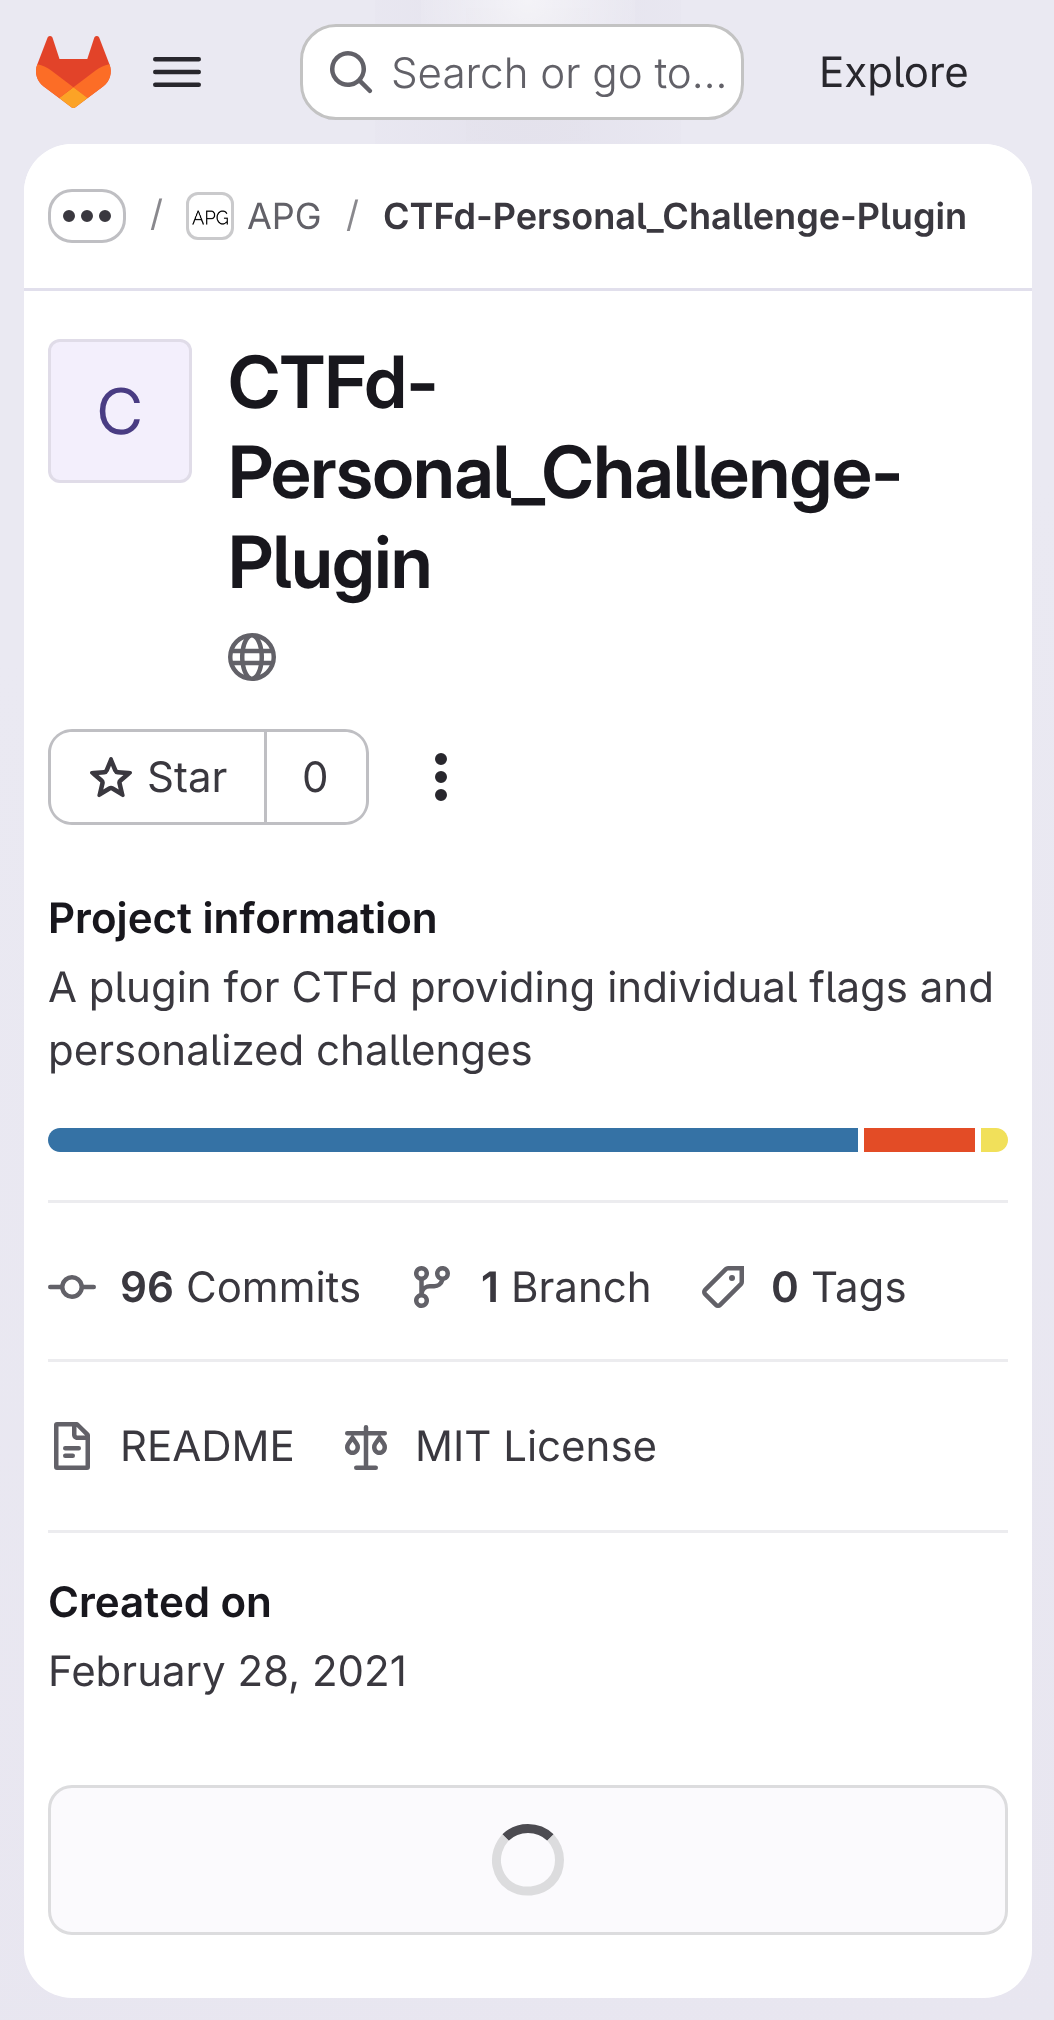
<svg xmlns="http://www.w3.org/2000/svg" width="1054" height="2020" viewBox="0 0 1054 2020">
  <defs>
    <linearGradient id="g1" gradientUnits="userSpaceOnUse" x1="717" y1="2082" x2="339" y2="-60"><stop offset="0" stop-color="#e8e6f0"/><stop offset="0.7" stop-color="#eae9f2"/></linearGradient>
    <radialGradient id="g2" gradientUnits="userSpaceOnUse" cx="0" cy="0" r="1" gradientTransform="matrix(528 0 0 2022 528 0)"><stop offset="0" stop-color="#e4e2ed"/><stop offset="0.4" stop-color="#e4e2ed" stop-opacity="0"/></radialGradient>
    <radialGradient id="g3" gradientUnits="userSpaceOnUse" cx="0" cy="0" r="1" gradientTransform="matrix(528 0 0 2022 528 0)"><stop offset="0" stop-color="#e4e2ec"/><stop offset="0.28" stop-color="#e4e2ec" stop-opacity="0"/></radialGradient>
    <radialGradient id="g4" gradientUnits="userSpaceOnUse" cx="528" cy="0" r="2090"><stop offset="0" stop-color="#fff" stop-opacity="0.6"/><stop offset="0.06" stop-color="#fff" stop-opacity="0"/></radialGradient>
  </defs>
  <rect width="100%" height="100%" fill="#fff"/>
  <path d="M0 0h1054v2020H0z" fill="url(#g1)"/>
  <path d="M375 0h306v144H375z" fill="url(#g2)"/>
  <path d="M466 8h124v133H466z" fill="url(#g3)"/>
  <path d="M421 0h214v24H421z" fill="url(#g4)"/>
  <image x="36" y="36" width="75" height="72" href="img/1.png"/>
  <image x="153" y="57" width="48" height="30" href="img/2.png"/>
  <rect x="300" y="24" width="444" height="96" rx="36" fill="#fff"/>
  <rect x="301.5" y="25.5" width="441" height="93" rx="34.5" fill="none" stroke="#0505063d" stroke-width="3"/>
  <image x="330" y="51" width="43" height="43" href="img/3.png"/>
  <rect x="24" y="144" width="1008" height="1854" rx="48" fill="#fff"/>
  <path d="M72 144H984C1010.5 144 1032 165.5 1032 192V291H24V192C24 165.5 45.5 144 72 144Z" fill="#fff"/>
  <path d="M24 288h1008v3H24z" fill="#e1dfec"/>
  <rect x="49.5" y="190.5" width="75" height="51" rx="22.5" fill="none" stroke="#bfbfc3" stroke-width="3"/>
  <image x="63" y="210" width="48" height="12" href="img/4.png"/>
  <rect x="187.5" y="193.5" width="45" height="45" rx="10.5" fill="none" stroke="#dcdcde" stroke-width="3"/>
  <image x="192" y="210" width="36" height="15" href="img/5.png"/>
  <rect x="187.5" y="193.5" width="45" height="45" rx="10.5" fill="none" stroke="#05050614" stroke-width="3"/>
  <rect x="48" y="339" width="144" height="144" rx="12" fill="#f3effc"/>
  <rect x="49.5" y="340.5" width="141" height="141" rx="10.5" fill="none" stroke="#05050614" stroke-width="3"/>
  <image x="228" y="633" width="48" height="48" href="img/6.png"/>
  <path d="M72 729H264V825H72C59 825 48 814 48 801V753C48 740 59 729 72 729ZM72 732H264V822H72C60 822 51 813 51 801V753C51 741 60 732 72 732Z" fill="#bfbfc3" fill-rule="evenodd"/>
  <image x="90" y="757" width="42" height="41" href="img/7.png"/>
  <path d="M267 729H345C358 729 369 740 369 753V801C369 814 358 825 345 825H267ZM267 732H345C357 732 366 741 366 753V801C366 813 357 822 345 822H267Z" fill="#bfbfc3" fill-rule="evenodd"/>
  <path d="M264 729h3v96H264z" fill="#bfbfc3"/>
  <image x="435" y="753" width="12" height="48" href="img/8.png"/>
  <path d="M48 1200h960v3H48z" fill="#ececef"/>
  <path d="M60 1128H858V1152H60C53.5 1152 48 1146.5 48 1140C48 1133.5 53.5 1128 60 1128Z" fill="#3572a5"/>
  <path d="M864 1128h111v24H864z" fill="#e34c26"/>
  <path d="M981 1128H996C1002.5 1128 1008 1133.5 1008 1140C1008 1146.5 1002.5 1152 996 1152H981Z" fill="#f1e05a"/>
  <path d="M48 1359h960v3H48z" fill="#ececef"/>
  <image x="48" y="1275" width="48" height="24" href="img/9.png"/>
  <image x="414" y="1266" width="36" height="42" href="img/10.png"/>
  <image x="702" y="1266" width="42" height="42" href="img/11.png"/>
  <path d="M48 1530h960v3H48z" fill="#ececef"/>
  <image x="54" y="1422" width="36" height="48" href="img/12.png"/>
  <image x="345" y="1425" width="42" height="45" href="img/13.png"/>
  <rect x="49.5" y="1786.5" width="957" height="147" rx="22.5" fill="#fbfafd" stroke="#dcdcde" stroke-width="3"/>
  <path d="M505.5 1837.5C518 1825.5 538 1825.5 550.5 1837.5" fill="none" stroke="#4c4b51" stroke-width="9"/>
  <path d="M550.5 1837.5C556 1843.5 559.5 1851.5 559.5 1860C559.5 1897.5 504.5 1903 497 1866C495 1856 498.5 1845 505.5 1837.5" fill="none" stroke="#dcdcde" stroke-width="9"/>
  <text x="391" y="88" font-family="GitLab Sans" font-size="42" font-weight="300" fill="#626168">Search or go to…</text>
  <text x="819" y="87" font-family="GitLab Sans" font-size="42" fill="#28272d">Explore</text>
  <text x="150" y="226" font-family="GitLab Sans" font-size="36" fill="#89888d">/</text>
  <text x="247" y="229" font-family="GitLab Sans" font-size="36" fill="#626168">APG</text>
  <text x="346" y="227" font-family="GitLab Sans" font-size="36" fill="#89888d">/</text>
  <text x="383" y="229" font-family="'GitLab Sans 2'" font-size="36" font-weight="600" fill="#3a383f">CTFd-Personal_Challenge-Plugin</text>
  <text x="97" y="434" font-family="'GitLab Sans 2'" font-size="63" fill="#493c83">C</text>
  <g font-family="GitLab Sans" font-size="72" font-weight="600" letter-spacing="-0.75" fill="#18171d">
    <text x="228" y="408">CTFd-</text>
    <text x="228" y="498">Personal_Challenge-</text>
    <text x="228" y="588">Plugin</text>
  </g>
  <g font-family="GitLab Sans" font-size="42" fill="#3a383f">
    <text x="147" y="792">Star</text>
    <text x="302" y="792">0</text>
  </g>
  <text x="48" y="933" font-family="'GitLab Sans 2'" font-size="42" font-weight="600" fill="#18171d">Project information</text>
  <g font-family="GitLab Sans" font-size="42" fill="#3a383f">
    <text x="48" y="1002">A plugin for CTFd providing individual flags and</text>
    <text x="48" y="1065">personalized challenges</text>
  </g>
  <text x="120" y="1302" font-family="'GitLab Sans 2'" font-size="42" font-weight="600" fill="#3a383f">96</text>
  <text x="186" y="1302" font-family="GitLab Sans" font-size="42" fill="#3a383f">Commits</text>
  <text x="481" y="1302" font-family="'GitLab Sans 2'" font-size="42" font-weight="600" fill="#3a383f">1</text>
  <text x="511" y="1302" font-family="GitLab Sans" font-size="42" fill="#3a383f">Branch</text>
  <text x="771" y="1302" font-family="'GitLab Sans 2'" font-size="42" font-weight="600" fill="#3a383f">0</text>
  <g font-family="GitLab Sans" font-size="42" fill="#3a383f">
    <text x="811" y="1302">Tags</text>
    <text x="120" y="1461">README</text>
    <text x="415" y="1461">MIT License</text>
  </g>
  <text x="48" y="1617" font-family="'GitLab Sans 2'" font-size="42" font-weight="600" fill="#18171d">Created on</text>
  <text x="48" y="1686" font-family="GitLab Sans" font-size="42" fill="#3a383f">February 28, 2021</text>
</svg>
